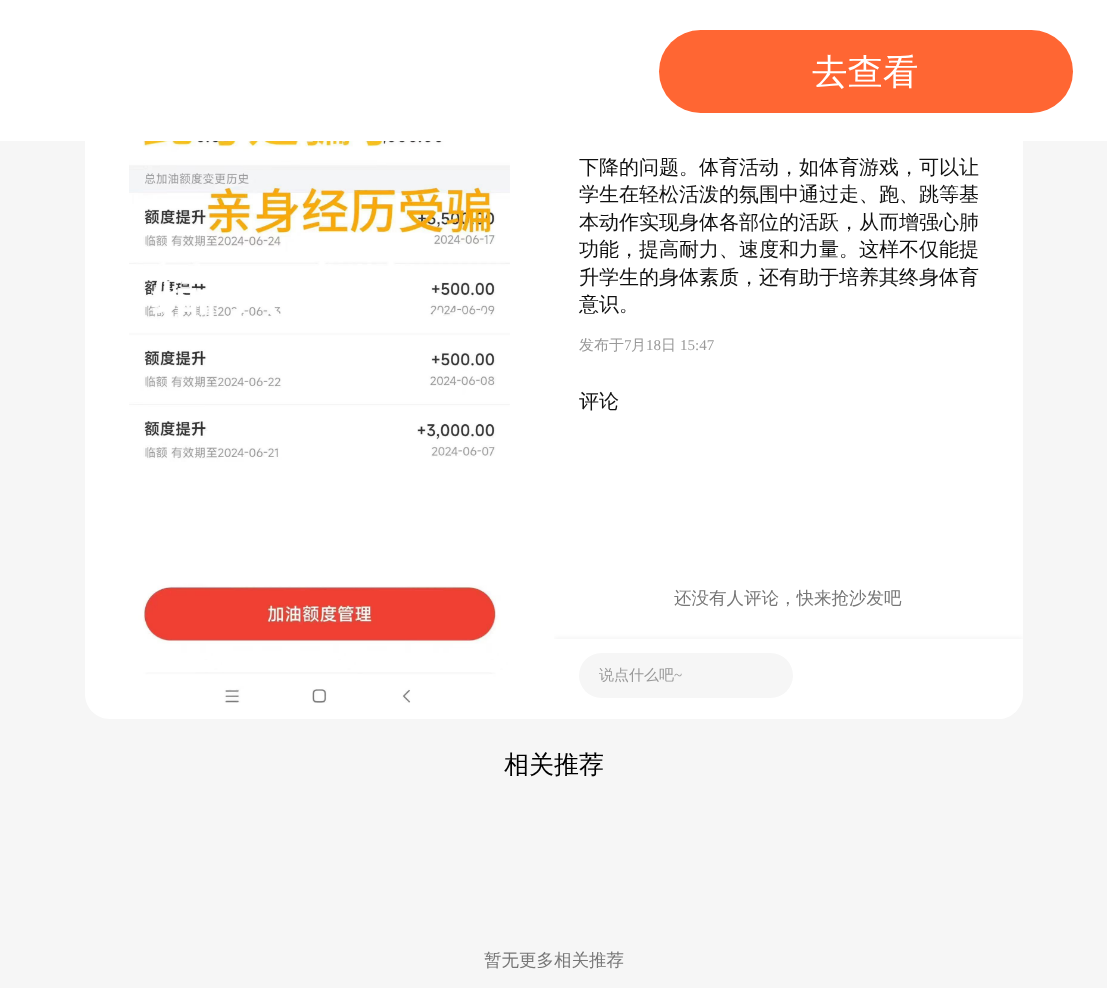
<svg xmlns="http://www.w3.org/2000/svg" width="1107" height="988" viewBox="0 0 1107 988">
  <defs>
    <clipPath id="clip1"><path d="M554-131H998C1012-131 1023-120 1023-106V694C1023 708 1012 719 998 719H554Z"/></clipPath>
  </defs>
  <rect width="100%" height="100%" fill="#f6f6f6"/>
  <path d="M554-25H998C1012-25 1023-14 1023 0V694C1023 708 1012 719 998 719H554Z" fill="#fff"/>
  <g clip-path="url(#clip1)">
    <path d="M554 638h469v80H554z" fill="#0000000d" filter="blur(2.5px)"/>
  </g>
  <path d="M110-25H554V719H110C96 719 85 708 85 694V0C85-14 96-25 110-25Z" fill="#fff"/>
  <path d="M0 0h1107v141H0z" fill="#fff"/>
  <rect x="659" y="30" width="414" height="83" rx="41.5" fill="#f63"/>
  <image x="129" y="141" width="381" height="562" href="img/1.png"/>
  <path d="M554 639H1023V694C1023 708 1012 719 998 719H554Z" fill="#fff"/>
  <rect x="579" y="653" width="214" height="45" rx="22.5" fill="#f6f6f6"/>
  <text x="812" y="84" font-family="WenQuanYi Zen Hei" font-size="35.5" font-weight="500" fill="#fff">去查看</text>
  <g font-family="WenQuanYi Zen Hei" font-size="20" font-weight="500" fill="#111">
    <text x="579" y="174">下降的问题。体育活动，如体育游戏，可以让</text>
    <text x="579" y="201">学生在轻松活泼的氛围中通过走、跑、跳等基</text>
    <text x="579" y="229">本动作实现身体各部位的活跃，从而增强心肺</text>
    <text x="579" y="256">功能，提高耐力、速度和力量。这样不仅能提</text>
    <text x="579" y="284">升学生的身体素质，还有助于培养其终身体育</text>
    <text x="579" y="311">意识。</text>
  </g>
  <text x="579" y="350" font-family="WenQuanYi Zen Hei" font-size="15" font-weight="500" fill="#999">发布于</text>
  <text x="624" y="350" font-family="Liberation Serif" font-size="15" fill="#999">7</text>
  <text x="631" y="350" font-family="WenQuanYi Zen Hei" font-size="15" font-weight="500" fill="#999">月</text>
  <text x="646" y="350" font-family="Liberation Serif" font-size="15" fill="#999">18</text>
  <text x="661" y="350" font-family="WenQuanYi Zen Hei" font-size="15" font-weight="500" fill="#999">日</text>
  <text x="680" y="350" font-family="Liberation Serif" font-size="15" fill="#999">15:47</text>
  <text x="579" y="408" font-family="WenQuanYi Zen Hei" font-size="20" font-weight="500" fill="#111">评论</text>
  <text x="674" y="604" font-family="WenQuanYi Zen Hei" font-size="17.5" font-weight="500" fill="#777">还没有人评论，快来抢沙发吧</text>
  <text x="599" y="680" font-family="WenQuanYi Zen Hei" font-size="15" font-weight="500" fill="#999">说点什么吧</text>
  <text x="674" y="680" font-family="Liberation Serif" font-size="15" fill="#999">~</text>
  <text x="504" y="773" font-family="WenQuanYi Zen Hei" font-size="25" font-weight="500" fill="#000">相关推荐</text>
  <text x="484" y="966" font-family="WenQuanYi Zen Hei" font-size="17.5" font-weight="500" fill="#777">暂无更多相关推荐</text>
</svg>
